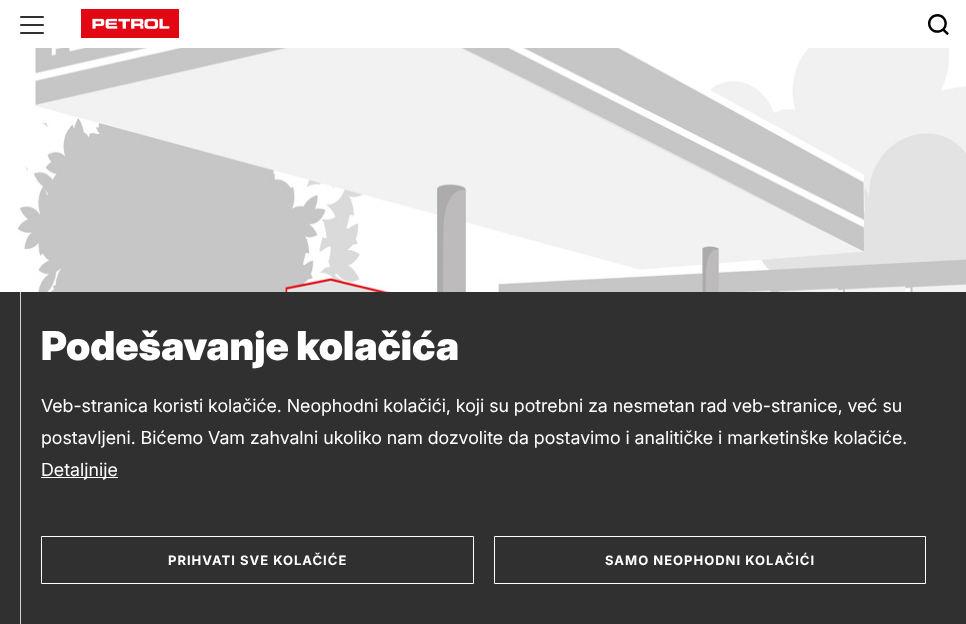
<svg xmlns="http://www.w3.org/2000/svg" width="966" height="624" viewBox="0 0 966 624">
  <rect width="100%" height="100%" fill="#fff"/>
  <rect x="20" y="16" width="24" height="2" rx="1" fill="#303030"/>
  <rect x="20" y="24" width="24" height="2" rx="1" fill="#303030"/>
  <rect x="20" y="32" width="24" height="2" rx="1" fill="#303030"/>
  <image x="81" y="9" width="98" height="29" href="img/1.png"/>
  <image x="928" y="14" width="21" height="21" href="img/2.png"/>
  <image x="0" y="48" width="966" height="244" href="img/3.png"/>
  <path d="M0 292h966v332H0z" fill="#303030"/>
  <path d="M20 292h1v332H20z" fill="#d1d1d1"/>
  <path d="M41 477h77v1H41z" fill="#fff"/>
  <path d="M41.5 536.5h432v47H41.5z" fill="none" stroke="#fff"/>
  <path d="M494.5 536.5h431v47H494.5z" fill="none" stroke="#fff"/>
  <text x="41" y="360" font-family="Inter" font-size="40" font-weight="900" fill="#fff">Podešavanje kolačića</text>
  <g font-family="Inter" font-size="18" fill="#fff">
    <text x="41" y="412">Veb-stranica koristi kolačiće. Neophodni kolačići, koji su potrebni za nesmetan rad veb-stranice, već su</text>
    <text x="41" y="444">postavljeni. Bićemo Vam zahvalni ukoliko nam dozvolite da postavimo i analitičke i marketinške kolačiće.</text>
    <text x="41" y="476">Detaljnije</text>
  </g>
  <g font-family="Inter" font-size="13" font-weight="bold" letter-spacing="1" fill="#fff">
    <text x="168" y="565">PRIHVATI SVE KOLAČIĆE</text>
    <text x="605" y="565">SAMO NEOPHODNI KOLAČIĆI</text>
  </g>
</svg>
